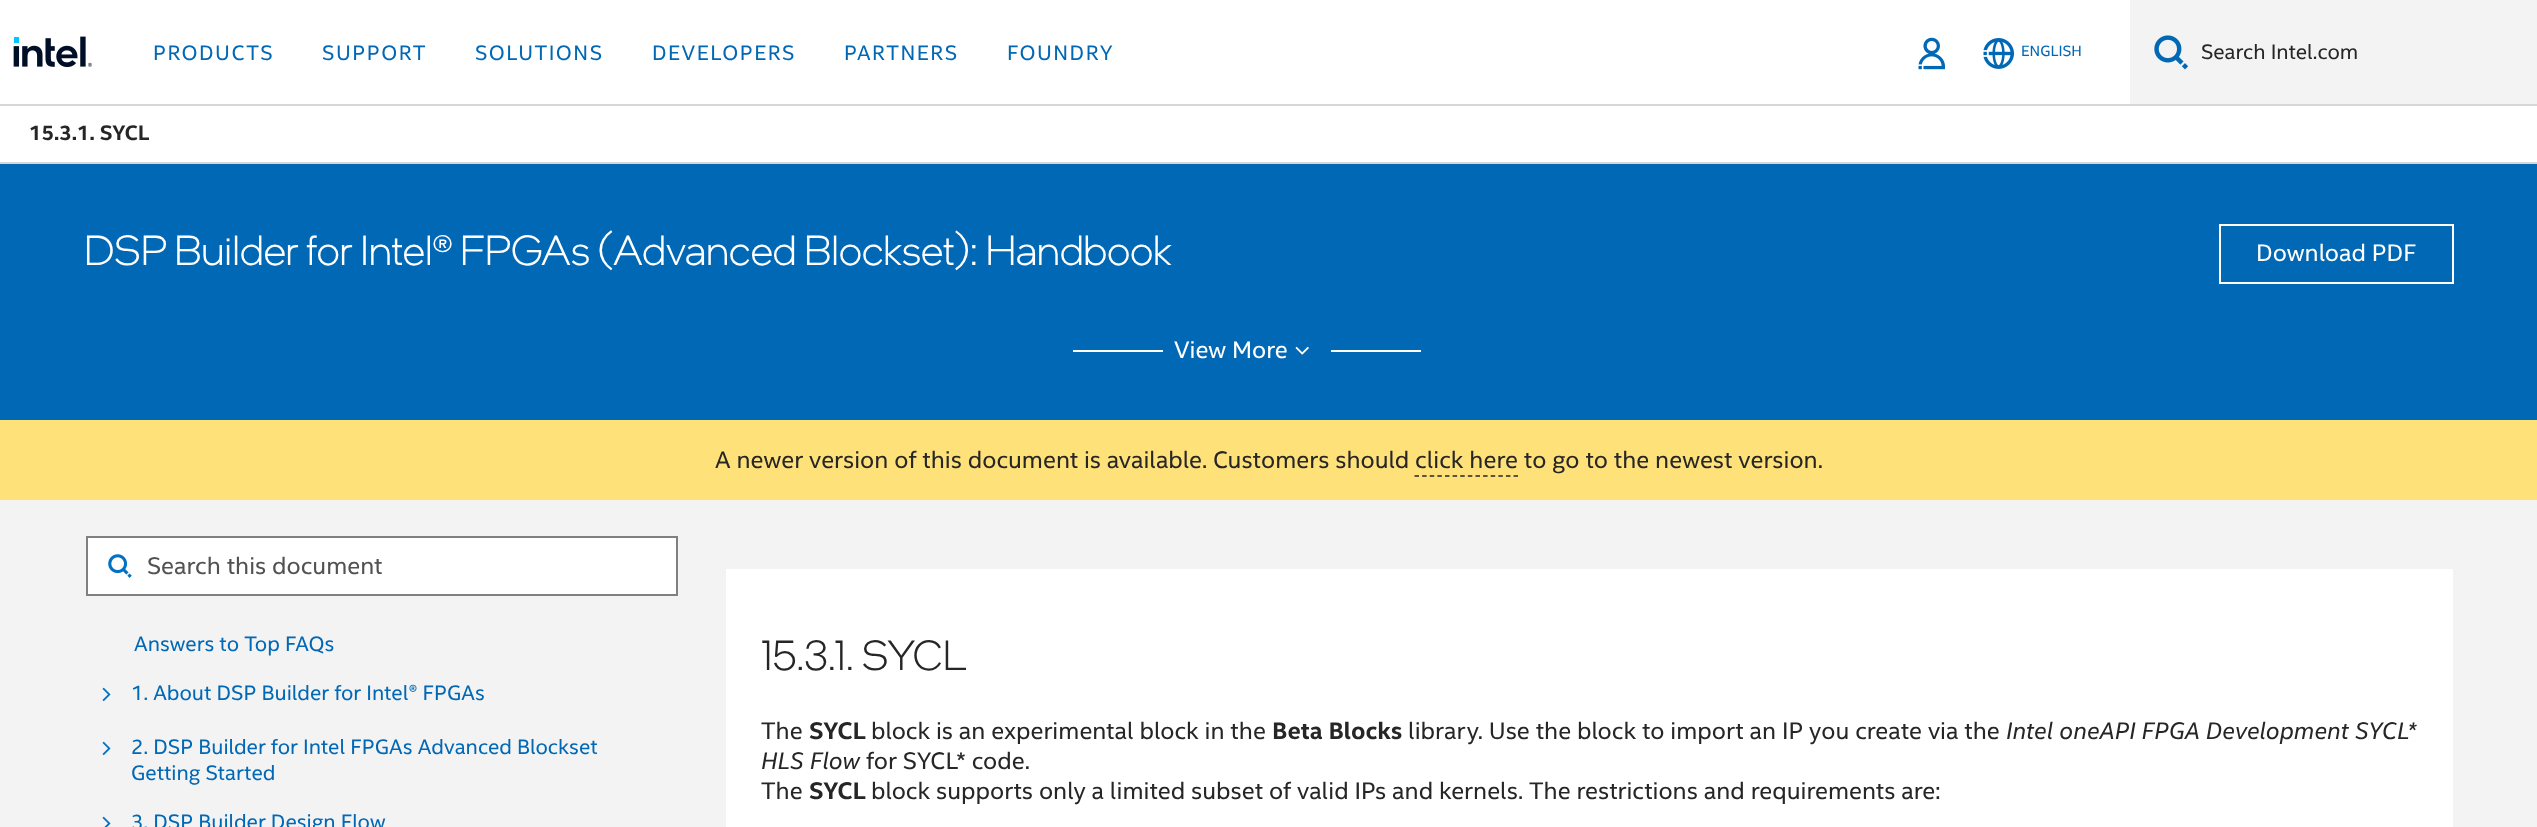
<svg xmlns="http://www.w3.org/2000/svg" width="2537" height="827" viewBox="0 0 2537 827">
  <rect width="100%" height="100%" fill="#fff"/>
  <path d="M0 104h2537v2H0z" fill="#d7d7d7"/>
  <image x="13" y="36" width="79" height="32" href="img/1.png"/>
  <image x="1918" y="37" width="27" height="33" href="img/2.png"/>
  <image x="1983" y="38" width="31" height="31" href="img/3.png"/>
  <path d="M2130 0h407v104H2130z" fill="#f3f3f3"/>
  <image x="2154" y="35" width="35" height="35" href="img/4.png"/>
  <path d="M0 162h2537v2H0z" fill="#d7d7d7"/>
  <path d="M0 164h2537v256H0z" fill="#0068b5"/>
  <path d="M2220 225h233v58H2220z" fill="none" stroke="#fff" stroke-width="2"/>
  <path d="M1073 350h90v2H1073z" fill="#fff"/>
  <image x="1295" y="346" width="14" height="9" href="img/5.png"/>
  <path d="M1331 350h90v2H1331z" fill="#fff"/>
  <path d="M0 420h2537v80H0z" fill="#ffe17a"/>
  <path d="M1414.5 476H1518" fill="none" stroke="#262626" stroke-width="1.5" stroke-dasharray="4.5 3.12"/>
  <path d="M0 500h2537v327H0z" fill="#f3f3f3"/>
  <path d="M87 537h590v58H87z" fill="#fff" stroke="#808080" stroke-width="2"/>
  <image x="108" y="554" width="24" height="24" href="img/6.png"/>
  <image x="102" y="687" width="9" height="15" href="img/7.png"/>
  <image x="102" y="741" width="9" height="15" href="img/7.png"/>
  <image x="102" y="816" width="9" height="11" href="img/8.png"/>
  <path d="M726 569h1727v258H726z" fill="#fff"/>
  <g font-family="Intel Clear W" font-size="21" letter-spacing="1.5" fill="#0068b5">
    <text x="153" y="60">PRODUCTS</text>
    <text x="322" y="60">SUPPORT</text>
    <text x="475" y="60">SOLUTIONS</text>
    <text x="652" y="60">DEVELOPERS</text>
    <text x="844" y="60">PARTNERS</text>
    <text x="1007" y="60">FOUNDRY</text>
  </g>
  <text x="2021" y="56" font-family="Intel Clear W" font-size="15" fill="#0068b5">ENGLISH</text>
  <text x="2201" y="59" font-family="Intel Clear W" font-size="21" fill="#262626">Search Intel.com</text>
  <text x="29" y="140" font-family="Intel Clear W" font-size="21" font-weight="bold" fill="#262626">15.3.1. SYCL</text>
  <text x="84" y="265" font-family="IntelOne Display" font-size="42" font-weight="300" letter-spacing="-0.33" fill="#fff">DSP Builder for Intel® FPGAs (Advanced Blockset): Handbook</text>
  <g font-family="Intel Clear W" font-size="24" fill="#fff">
    <text x="2256" y="261">Download PDF</text>
    <text x="1174" y="358">View More</text>
  </g>
  <text x="715" y="468" font-family="Intel Clear W" font-size="24" fill="#262626">A newer version of this document is available. Customers should click here to go to the newest version.</text>
  <text x="147" y="574" font-family="Intel Clear W" font-size="24" fill="#525252">Search this document</text>
  <g font-family="Intel Clear W" font-size="21" fill="#0068b5">
    <text x="134" y="651">Answers to Top FAQs</text>
    <text x="131" y="700">1. About DSP Builder for Intel® FPGAs</text>
    <text x="131" y="754">2. DSP Builder for Intel FPGAs Advanced Blockset</text>
    <text x="131" y="780">Getting Started</text>
    <text x="131" y="829">3. DSP Builder Design Flow</text>
  </g>
  <text x="761" y="670" font-family="IntelOne Display" font-size="42" font-weight="300" fill="#262626">15.3.1. SYCL</text>
  <text x="761" y="739" font-family="Intel Clear W" font-size="24" fill="#262626">The</text>
  <text x="809" y="739" font-family="Intel Clear W" font-size="24" font-weight="bold" fill="#262626">SYCL</text>
  <text x="871" y="739" font-family="Intel Clear W" font-size="24" fill="#262626">block is an experimental block in the</text>
  <text x="1272" y="739" font-family="Intel Clear W" font-size="24" font-weight="bold" fill="#262626">Beta Blocks</text>
  <text x="1408" y="739" font-family="Intel Clear W" font-size="24" fill="#262626">library. Use the block to import an IP you create via the</text>
  <g font-family="Intel Clear W" font-size="24" font-style="italic" fill="#262626">
    <text x="2006" y="739">Intel oneAPI FPGA Development SYCL*</text>
    <text x="761" y="769">HLS Flow</text>
  </g>
  <g font-family="Intel Clear W" font-size="24" fill="#262626">
    <text x="866" y="769">for SYCL* code.</text>
    <text x="761" y="799">The</text>
  </g>
  <text x="809" y="799" font-family="Intel Clear W" font-size="24" font-weight="bold" fill="#262626">SYCL</text>
  <text x="871" y="799" font-family="Intel Clear W" font-size="24" fill="#262626">block supports only a limited subset of valid IPs and kernels. The restrictions and requirements are:</text>
</svg>
